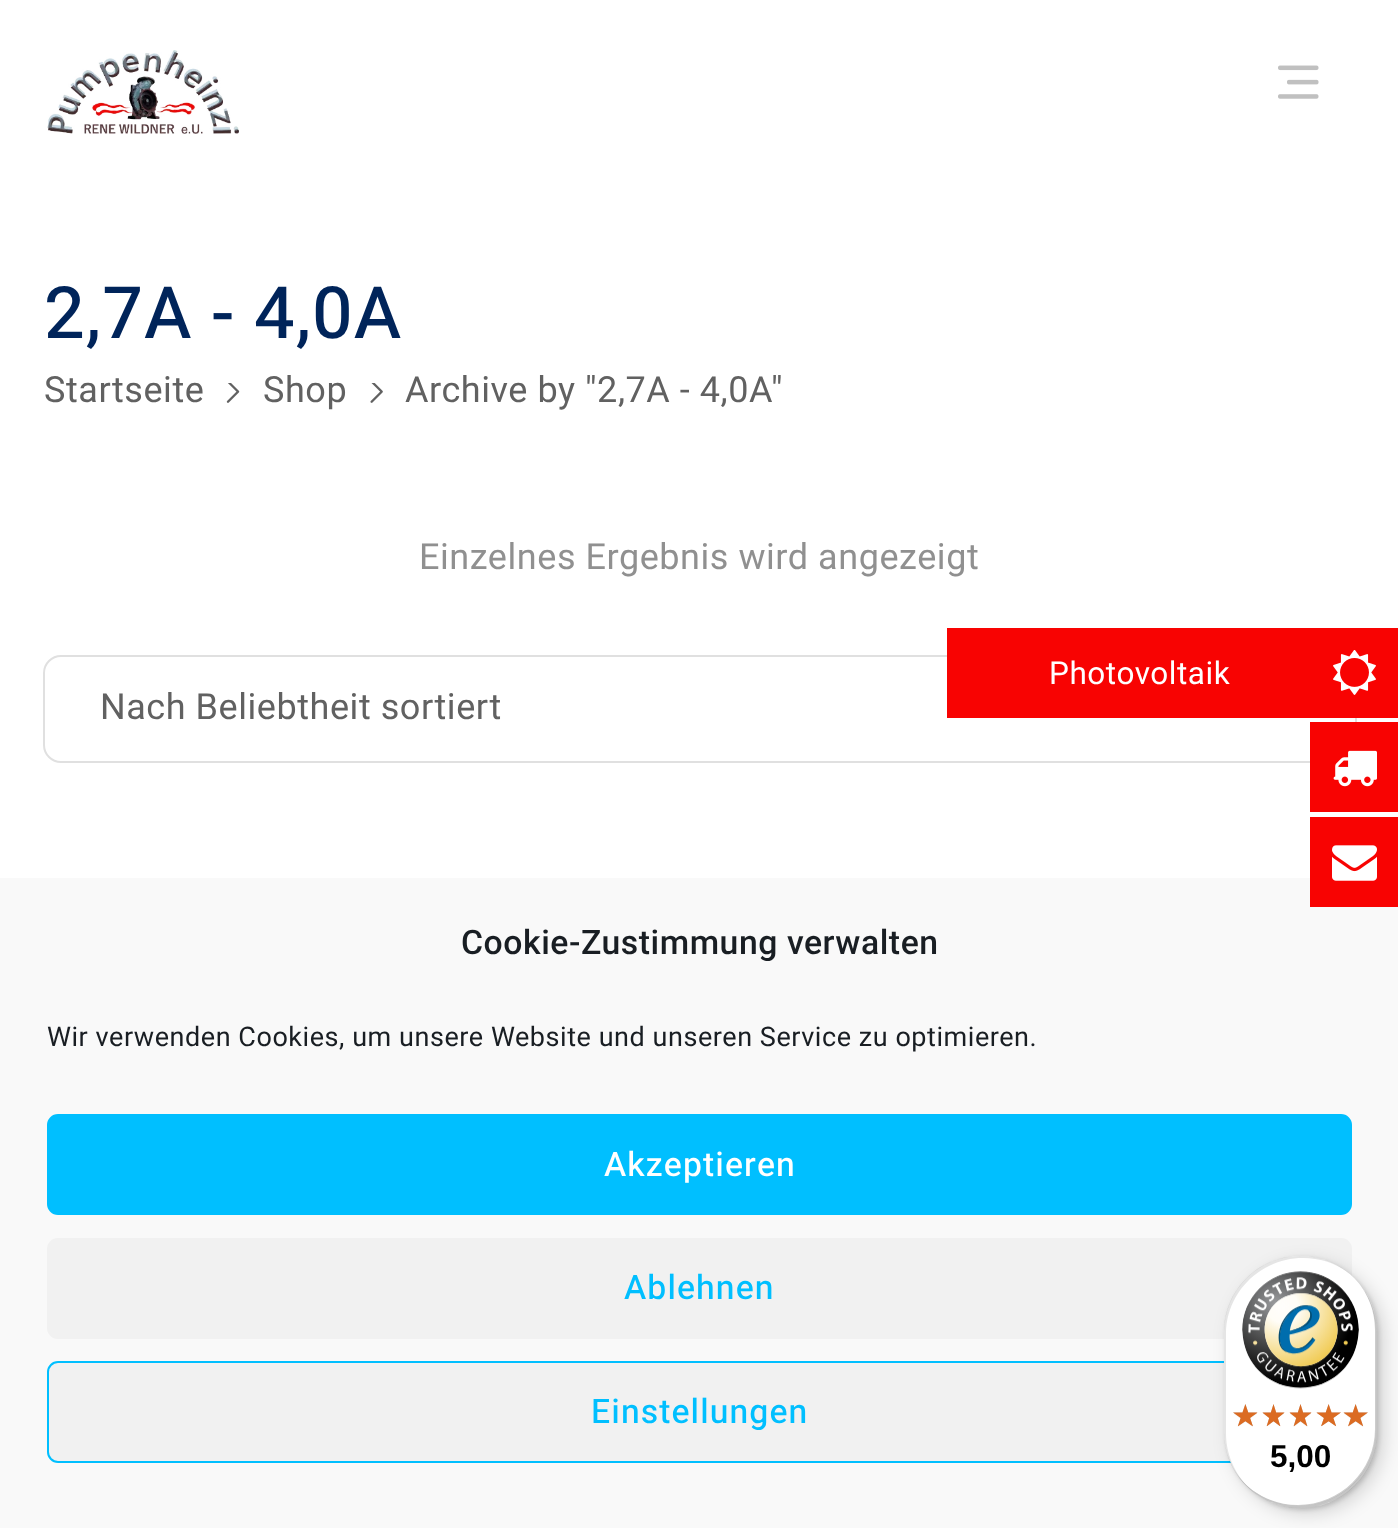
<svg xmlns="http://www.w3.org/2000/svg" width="1398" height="1528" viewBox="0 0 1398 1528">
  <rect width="100%" height="100%" fill="#fff"/>
  <image x="47" y="50" width="192" height="84" href="img/1.png"/>
  <image x="1278" y="65" width="41" height="34" href="img/2.png"/>
  <image x="226" y="383" width="14" height="20" href="img/3.png"/>
  <image x="370" y="383" width="13" height="20" href="img/4.png"/>
  <rect x="44" y="656" width="1312" height="106" rx="17" fill="none" stroke="#e0e0e0" stroke-width="2"/>
  <path d="M947 628h451v90H947z" fill="#f80302"/>
  <image x="1333" y="650" width="43" height="45" href="img/5.png"/>
  <path d="M1310 722h88v90H1310z" fill="#f80302"/>
  <image x="1333" y="750" width="44" height="37" href="img/6.png"/>
  <path d="M0 878h1398v650H0z" fill="#f9f9f9"/>
  <path d="M1310 817h88v90H1310z" fill="#f80302"/>
  <image x="1332" y="845" width="45" height="36" href="img/7.png"/>
  <rect x="48" y="1115" width="1303" height="99" rx="10" fill="#00bfff" stroke="#00bfff" stroke-width="2"/>
  <rect x="47" y="1238" width="1305" height="101" rx="11" fill="#f1f1f1"/>
  <rect x="48" y="1362" width="1303" height="100" rx="10" fill="#f1f1f1" stroke="#00bfff" stroke-width="2"/>
  <rect x="1231" y="1262" width="153" height="252" rx="76.5" fill="#00000026" filter="blur(9px)"/>
  <rect x="1226" y="1258" width="153" height="252" rx="76.5" fill="#00000026" filter="blur(2px)"/>
  <rect x="1224" y="1256" width="153" height="252" rx="76.5" fill="#fff"/>
  <path d="M1303 1258C1321 1258 1338 1264 1351 1275C1338 1263 1320 1256 1300 1256C1258 1256 1224 1290 1224 1332V1432C1224 1458 1237 1481 1257 1495C1238 1480 1226 1458 1226 1433V1334C1226 1292 1261 1258 1303 1258Z" fill="#0000001a"/>
  <path d="M1238 1476C1252 1495 1275 1508 1300 1508C1343 1508 1377 1474 1377 1432V1332C1377 1313 1369 1294 1357 1281C1368 1294 1375 1311 1375 1330V1429C1375 1471 1340 1505 1298 1505C1274 1505 1252 1494 1238 1476Z" fill="#00000033"/>
  <path d="M1235 1471C1248 1493 1273 1508 1300 1508C1343 1508 1377 1474 1377 1432V1332C1377 1318 1373 1304 1365 1292C1372 1303 1376 1317 1376 1331V1430C1376 1472 1341 1506 1299 1506C1272 1506 1248 1492 1235 1471Z" fill="#32323233"/>
  <path d="M1235 1471C1248 1493 1273 1508 1300 1508C1343 1508 1377 1474 1377 1432V1332C1377 1317 1373 1303 1365 1291C1372 1303 1376 1316 1376 1331V1430C1376 1472 1342 1506 1299 1506C1272 1506 1248 1492 1235 1471Z" fill="#ffffff4d"/>
  <image x="1242" y="1271" width="117" height="118" href="img/8.png"/>
  <image x="1233" y="1404" width="24" height="23" href="img/9.png"/>
  <image x="1262" y="1404" width="23" height="22" href="img/10.png"/>
  <image x="1290" y="1404" width="21" height="23" href="img/11.png"/>
  <image x="1316" y="1404" width="25" height="22" href="img/12.png"/>
  <image x="1344" y="1404" width="24" height="23" href="img/13.png"/>
  <image x="1233" y="1404" width="25" height="23" href="img/14.png"/>
  <image x="1262" y="1404" width="23" height="23" href="img/15.png"/>
  <image x="1289" y="1404" width="23" height="23" href="img/16.png"/>
  <image x="1316" y="1404" width="25" height="23" href="img/17.png"/>
  <image x="1343" y="1404" width="25" height="23" href="img/18.png"/>
  <text x="44" y="338" font-family="Heebo" font-size="72" font-weight="500" letter-spacing="1.1" fill="#00245a">2,7A - 4,0A</text>
  <g font-family="Roboto" font-size="36" letter-spacing="0.55" fill="#616161">
    <text x="44" y="402">Startseite</text>
    <text x="263" y="402">Shop</text>
    <text x="405" y="402">Archive by "2,7A - 4,0A"</text>
  </g>
  <text x="419" y="569" font-family="Roboto" font-size="36" letter-spacing="0.55" fill="#909090">Einzelnes Ergebnis wird angezeigt</text>
  <text x="100" y="719" font-family="Roboto" font-size="36" letter-spacing="0.55" fill="#616161">Nach Beliebtheit sortiert</text>
  <text x="1049" y="684" font-family="Roboto" font-size="31.5" letter-spacing="0.55" fill="#fff">Photovoltaik</text>
  <text x="461" y="954" font-family="Roboto" font-size="33.75" font-weight="500" letter-spacing="0.55" fill="#191e23">Cookie-Zustimmung verwalten</text>
  <text x="47" y="1046" font-family="Roboto" font-size="27" letter-spacing="0.55" fill="#191e23">Wir verwenden Cookies, um unsere Website und unseren Service zu optimieren.</text>
  <text x="604" y="1176" font-family="Heebo" font-size="33.75" font-weight="500" letter-spacing="1.1" fill="#fff">Akzeptieren</text>
  <g font-family="Heebo" font-size="33.75" font-weight="500" letter-spacing="1.1" fill="#00bfff">
    <text x="624" y="1299">Ablehnen</text>
    <text x="591" y="1423">Einstellungen</text>
  </g>
  <text x="1270" y="1467" font-family="Liberation Sans" font-size="31.5" font-weight="bold" fill="#000">5,00</text>
</svg>
